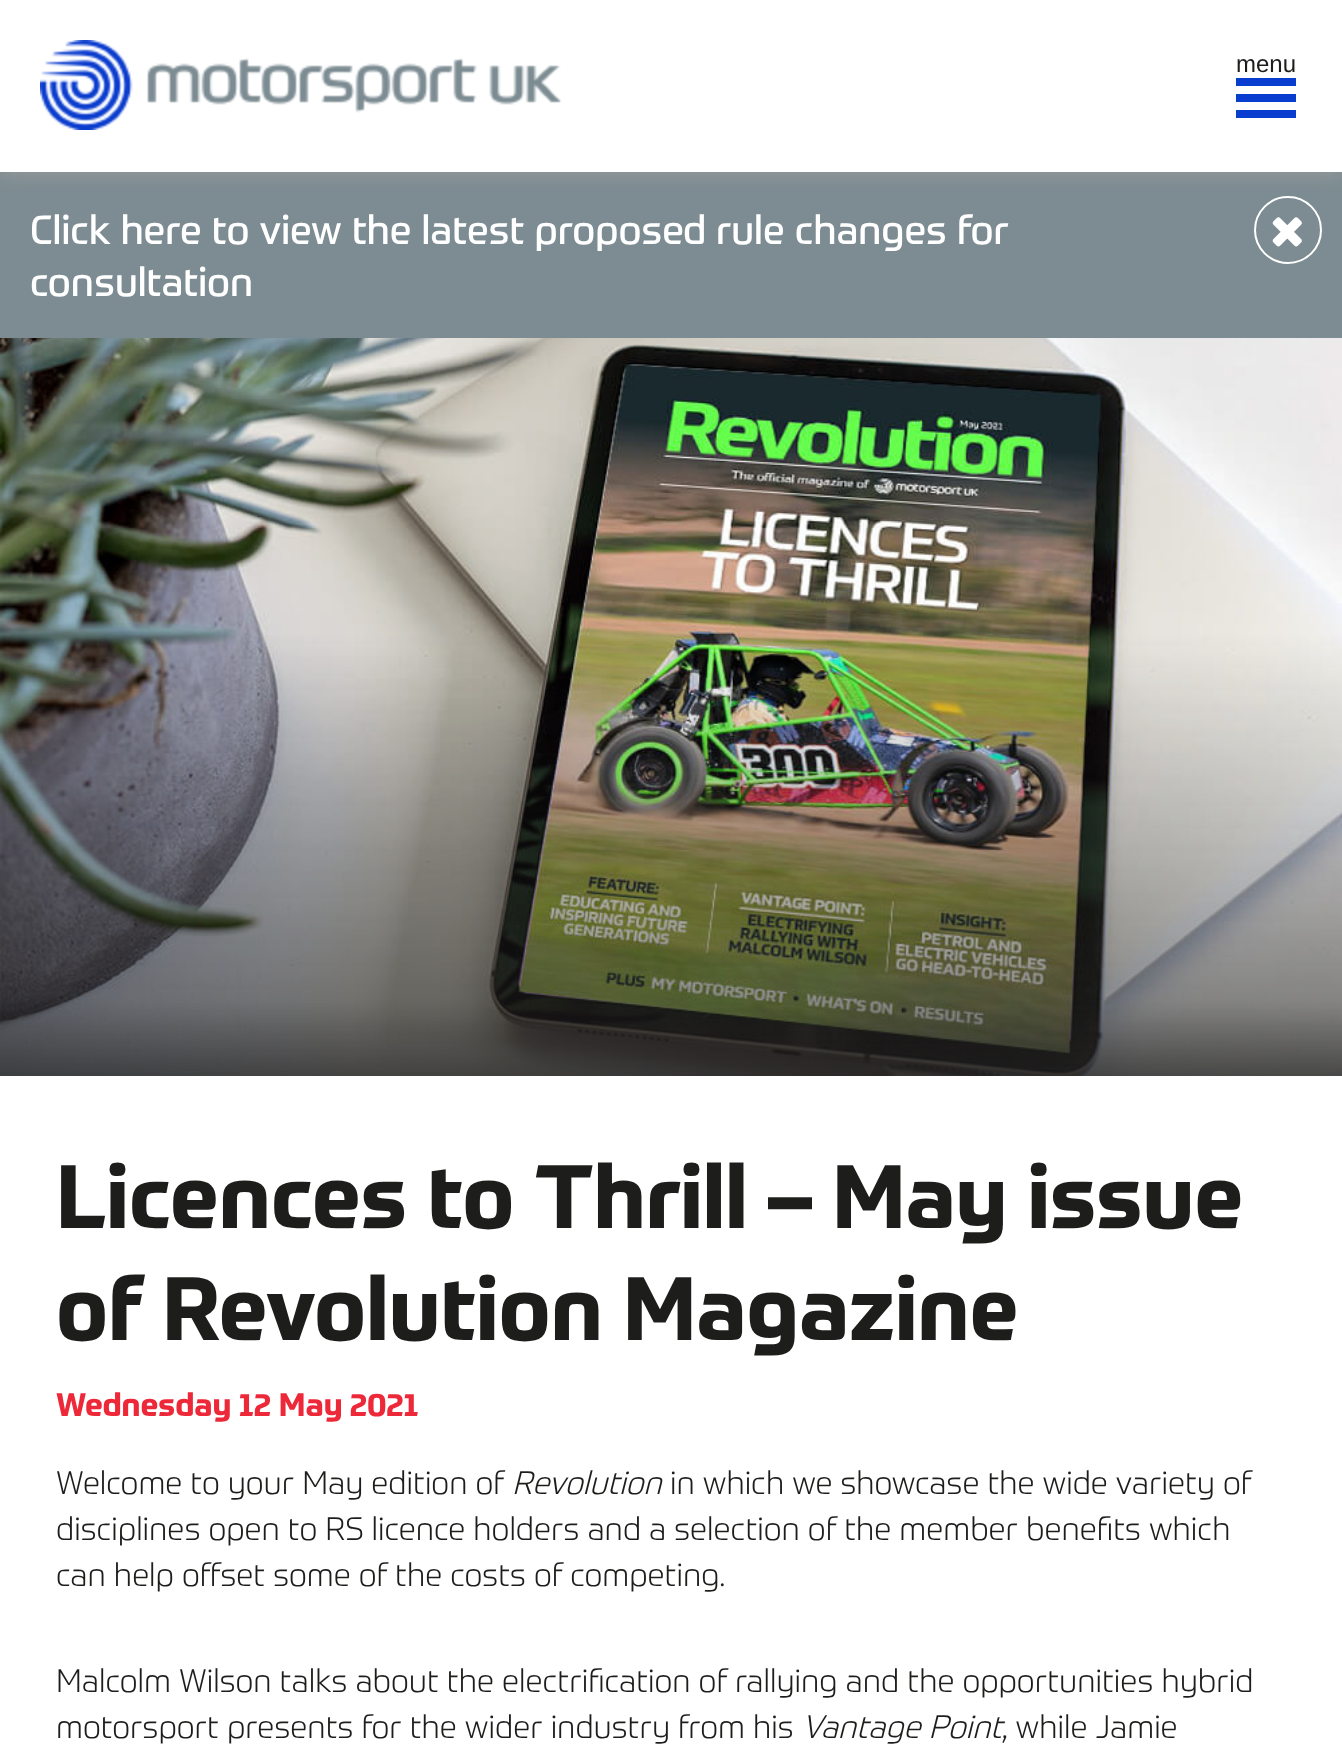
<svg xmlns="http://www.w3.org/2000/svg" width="1342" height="1762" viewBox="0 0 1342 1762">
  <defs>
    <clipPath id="clip1"><path d="M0 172h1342v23H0z"/></clipPath>
  </defs>
  <rect width="100%" height="100%" fill="#fff"/>
  <path d="M0 172h1342v166H0z" fill="#7c8c92"/>
  <circle cx="1288" cy="230" r="33" fill="none" stroke="#fff" stroke-width="2"/>
  <g clip-path="url(#clip1)">
    <path d="M0 2h1342v172H0z" fill="#999" filter="blur(10px)"/>
  </g>
  <image x="40" y="40" width="521" height="90" href="img/1.png"/>
  <path d="M1236 94h60v8H1236z" fill="#093dcf"/>
  <path d="M1236 78h60v8H1236z" fill="#093dcf"/>
  <path d="M1236 110h60v8H1236z" fill="#093dcf"/>
  <image x="1272" y="217" width="30" height="30" href="img/2.png"/>
  <image x="0" y="338" width="1342" height="738" href="img/3.png"/>
  <text x="1236" y="72" font-family="Liberation Sans" font-size="24" fill="#1d1d1b">menu</text>
  <g font-family="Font" font-size="40" fill="#fff">
    <text x="30" y="244">Click here to view the latest proposed rule changes for</text>
    <text x="30" y="296">consultation</text>
  </g>
  <g font-family="Font" font-size="88" font-weight="bold" fill="#1d1d1b">
    <text x="56" y="1228">Licences to Thrill – May issue</text>
    <text x="56" y="1340">of Revolution Magazine</text>
  </g>
  <text x="56" y="1416" font-family="Font" font-size="32" font-weight="bold" fill="#ed2939">Wednesday 12 May 2021</text>
  <text x="56" y="1494" font-family="Font" font-size="32" font-weight="300" fill="#1d1d1b">Welcome to your May edition of</text>
  <text x="512" y="1494" font-family="Font" font-size="32" font-weight="300" font-style="italic" fill="#1d1d1b">Revolution</text>
  <g font-family="Font" font-size="32" font-weight="300" fill="#1d1d1b">
    <text x="670" y="1494">in which we showcase the wide variety of</text>
    <text x="56" y="1540">disciplines open to RS licence holders and a selection of the member benefits which</text>
    <text x="56" y="1586">can help offset some of the costs of competing.</text>
    <text x="56" y="1692">Malcolm Wilson talks about the electrification of rallying and the opportunities hybrid</text>
    <text x="56" y="1738">motorsport presents for the wider industry from his</text>
  </g>
  <text x="802" y="1738" font-family="Font" font-size="32" font-weight="300" font-style="italic" fill="#1d1d1b">Vantage Point</text>
  <text x="1002" y="1738" font-family="Font" font-size="32" font-weight="300" fill="#1d1d1b">, while Jamie</text>
</svg>
